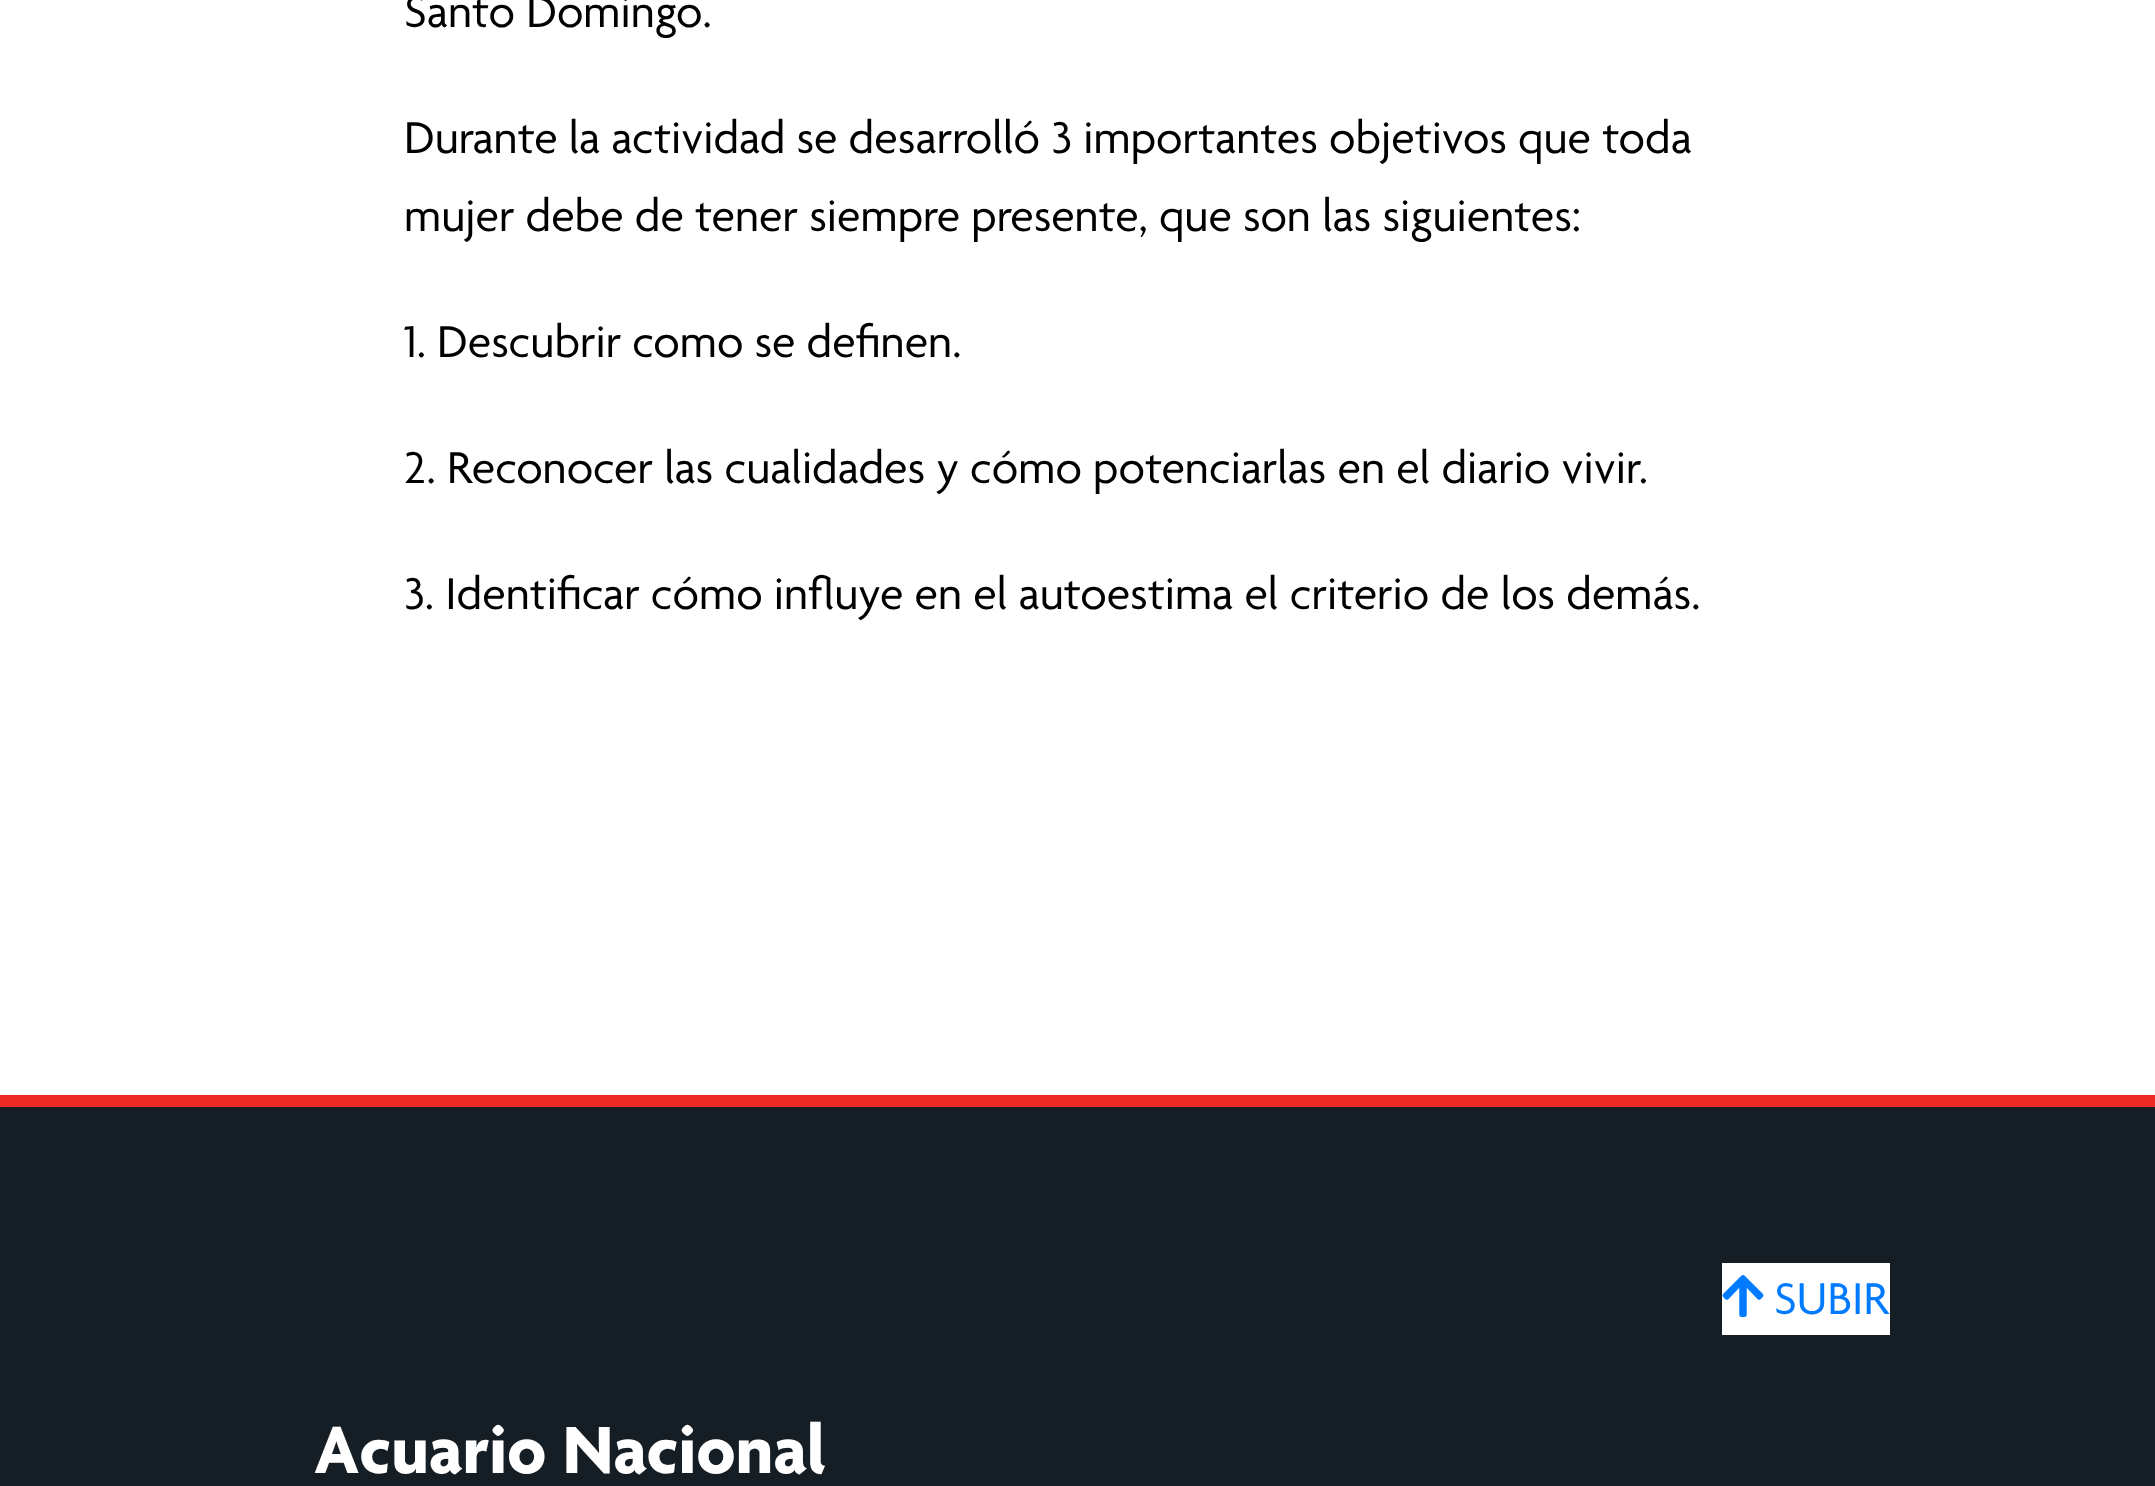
<svg xmlns="http://www.w3.org/2000/svg" width="2155" height="1486" viewBox="0 0 2155 1486">
  <rect width="100%" height="100%" fill="#fff"/>
  <path d="M0 1107h2155v379H0z" fill="#151e25"/>
  <path d="M0 1095h2155v12H0z" fill="#ee2a24"/>
  <path d="M1722 1263h168v72H1722z" fill="#fff"/>
  <image x="1722" y="1275" width="42" height="42" href="img/1.png"/>
  <g font-family="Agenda" font-size="48" fill="#000">
    <text x="404" y="27">Santo Domingo.</text>
    <text x="404" y="153">Durante la actividad se desarrolló 3 importantes objetivos que toda</text>
    <text x="404" y="231">mujer debe de tener siempre presente, que son las siguientes:</text>
    <text x="404" y="357">1. Descubrir como se definen.</text>
    <text x="404" y="483">2. Reconocer las cualidades y cómo potenciarlas en el diario vivir.</text>
    <text x="404" y="609">3. Identificar cómo influye en el autoestima el criterio de los demás.</text>
  </g>
  <text x="1774" y="1314" font-family="Agenda" font-size="48" fill="#007bff">SUBIR</text>
  <text x="314" y="1473" font-family="Agenda" font-size="72" font-weight="bold" fill="#fff">Acuario Nacional</text>
</svg>
